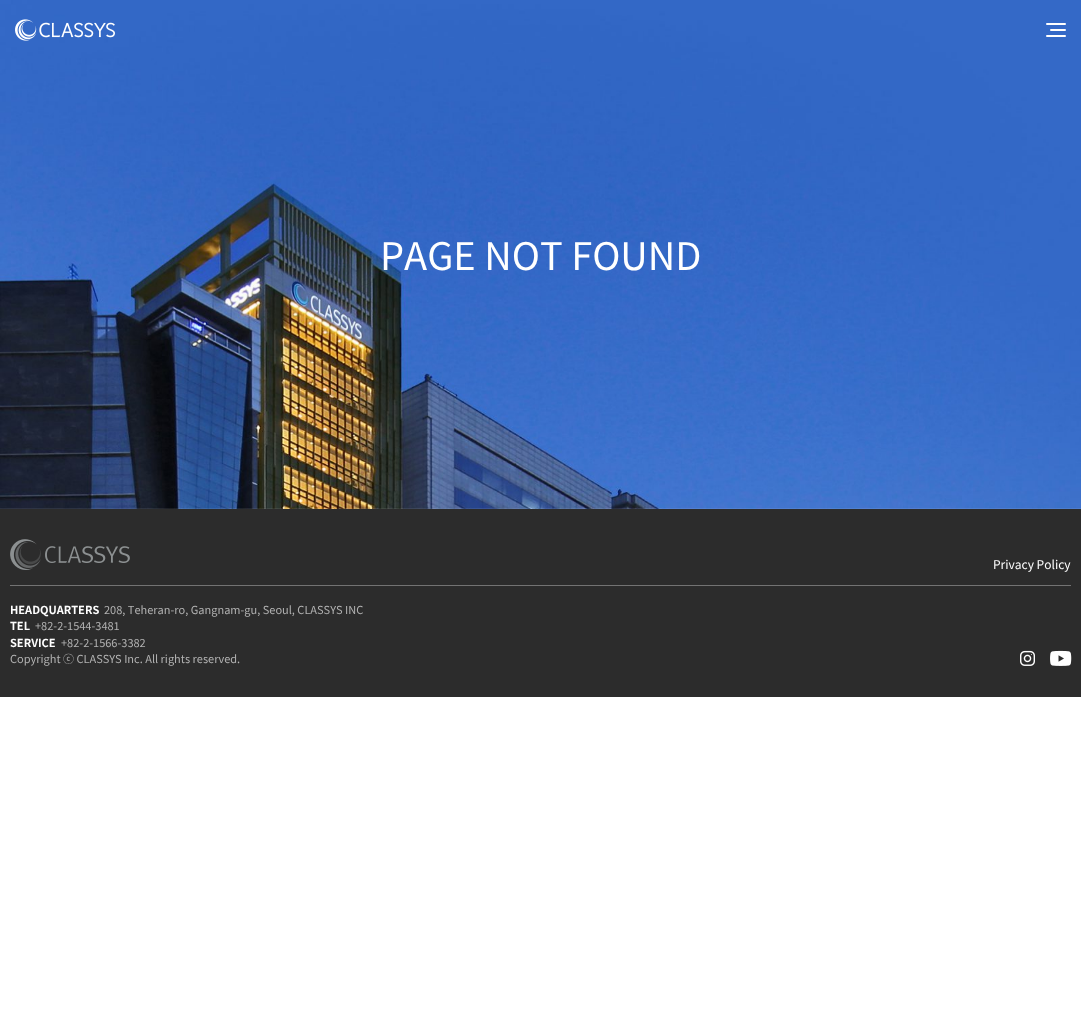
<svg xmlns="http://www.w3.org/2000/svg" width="1081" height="1017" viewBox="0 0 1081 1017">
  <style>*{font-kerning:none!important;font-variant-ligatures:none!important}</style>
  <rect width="100%" height="100%" fill="#fff"/>
  <image x="0" y="0" width="1081" height="509" href="img/2.png"/>
  <image x="15" y="19" width="100" height="22" href="img/1.png"/>
  <rect x="1046" y="23" width="20" height="2" rx="1" fill="#fff"/>
  <rect x="1050" y="29" width="16" height="2" rx="1" fill="#fff"/>
  <rect x="1046" y="35" width="20" height="2" rx="1" fill="#fff"/>
  <path d="M0 509h1081v188H0z" fill="#2c2c2c"/>
  <path d="M10 585h1061v1H10z" fill="#737373"/>
  <image x="10" y="539" width="120" height="31" href="img/3.png"/>
  <image x="1020" y="650" width="15" height="16" href="img/4.png"/>
  <image x="1050" y="650" width="22" height="16" href="img/5.png"/>
  <text x="380" y="270" font-family="Noto Sans KR" font-size="38" fill="#fff">PAGE NOT FOUND</text>
  <text x="993" y="569" font-family="Noto Sans KR" font-size="12" fill="#fff">Privacy Policy</text>
  <text x="10" y="614" font-family="Noto Sans KR" font-size="11" font-weight="bold" fill="#fff">HEADQUARTERS</text>
  <text x="104" y="614" font-family="Noto Sans KR" font-size="11" fill="#b2b2b2">208, Teheran-ro, Gangnam-gu, Seoul, CLASSYS INC</text>
  <text x="10" y="630" font-family="Noto Sans KR" font-size="11" font-weight="bold" fill="#fff">TEL</text>
  <text x="35" y="630" font-family="Noto Sans KR" font-size="11" fill="#b2b2b2">+82-2-1544-3481</text>
  <text x="10" y="647" font-family="Noto Sans KR" font-size="11" font-weight="bold" fill="#fff">SERVICE</text>
  <g font-family="Noto Sans KR" font-size="11" fill="#b2b2b2">
    <text x="61" y="647">+82-2-1566-3382</text>
    <text x="10" y="663">Copyright ⓒ CLASSYS Inc. All rights reserved.</text>
  </g>
</svg>
